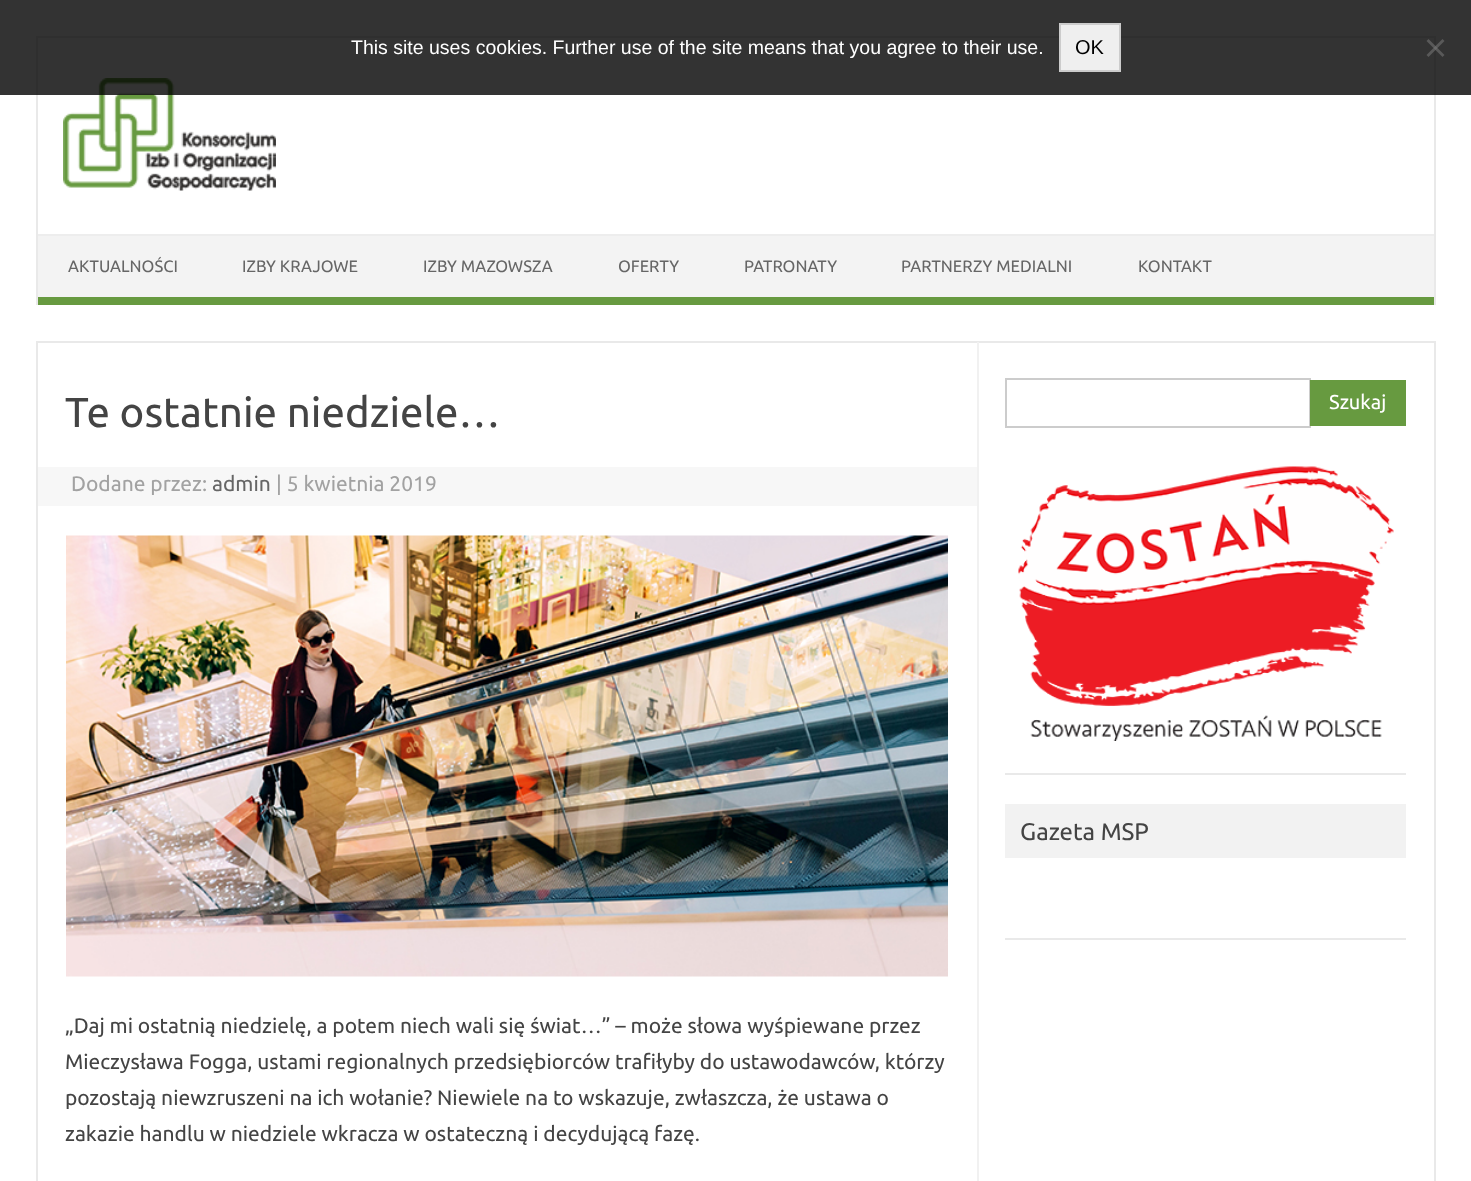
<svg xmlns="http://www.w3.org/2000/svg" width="1471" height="1181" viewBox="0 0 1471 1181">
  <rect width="100%" height="100%" fill="#fff"/>
  <path d="M36 36h1400v2H36z" fill="#e9e9e9"/>
  <path d="M1434 36h2v269H1434z" fill="#e9e9e9"/>
  <path d="M36 36h2v269H36z" fill="#e9e9e9"/>
  <image x="63" y="78" width="213" height="113" href="img/1.png"/>
  <path d="M0 0h1471v95H0z" fill="#000000cc"/>
  <path d="M1060 24h60v47H1060z" fill="#efefef" stroke="#ccc" stroke-width="2"/>
  <path d="M1442.5 39L1444.5 41L1428.5 57L1426.5 55Z" fill="#80808080"/>
  <path d="M1426.5 41L1428.5 39L1444.5 55L1442.5 57Z" fill="#80808080"/>
  <path d="M38 236h1396v61H38z" fill="#f3f3f3"/>
  <path d="M38 234h1396v2H38z" fill="#ededed"/>
  <path d="M38 297h1396v8H38z" fill="#679a40"/>
  <path d="M37 342h1398v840H37z" fill="none" stroke="#e9e9e9" stroke-width="2"/>
  <path d="M977 342h2v839H977z" fill="#f1f1f1"/>
  <path d="M38 467h939v39H38z" fill="#f7f7f7"/>
  <image x="66" y="535" width="882" height="442" href="img/2.png"/>
  <path d="M1006 379h304v48H1006z" fill="none" stroke="#ccc" stroke-width="2"/>
  <path d="M1310 380h96v46H1310z" fill="#679a40"/>
  <path d="M1005 773h401v2H1005z" fill="#e9e9e9"/>
  <image x="1018" y="466" width="376" height="275" href="img/3.png"/>
  <path d="M1005 804h401v54H1005z" fill="#f2f2f2"/>
  <path d="M1005 938h401v2H1005z" fill="#e9e9e9"/>
  <text x="351" y="54" font-family="Liberation Sans" font-size="19.5" fill="#fff">This site uses cookies. Further use of the site means that you agree to their use.</text>
  <text x="1075" y="54" font-family="Liberation Sans" font-size="20" fill="#000">OK</text>
  <g font-family="Ubuntu" font-size="16.5" fill="#666">
    <text x="68" y="272">AKTUALNOŚCI</text>
    <text x="242" y="272">IZBY KRAJOWE</text>
    <text x="423" y="272">IZBY MAZOWSZA</text>
    <text x="618" y="272">OFERTY</text>
    <text x="744" y="272">PATRONATY</text>
    <text x="901" y="272">PARTNERZY MEDIALNI</text>
    <text x="1138" y="272">KONTAKT</text>
  </g>
  <text x="65" y="427" font-family="Ubuntu" font-size="42" fill="#444">Te ostatnie niedziele…</text>
  <text x="71" y="491" font-family="Ubuntu" font-size="21" fill="#a2a2a2">Dodane przez:</text>
  <text x="212" y="491" font-family="Ubuntu" font-size="21" fill="#666">admin</text>
  <text x="276" y="491" font-family="Ubuntu" font-size="21" fill="#a2a2a2">| 5 kwietnia 2019</text>
  <g font-family="Ubuntu" font-size="21" fill="#444">
    <text x="65" y="1033">„Daj mi ostatnią niedzielę, a potem niech wali się świat…” – może słowa wyśpiewane przez</text>
    <text x="65" y="1069">Mieczysława Fogga, ustami regionalnych przedsiębiorców trafiłyby do ustawodawców, którzy</text>
    <text x="65" y="1105">pozostają niewzruszeni na ich wołanie? Niewiele na to wskazuje, zwłaszcza, że ustawa o</text>
    <text x="65" y="1141">zakazie handlu w niedziele wkracza w ostateczną i decydującą fazę.</text>
  </g>
  <text x="1329" y="409" font-family="Ubuntu" font-size="20" fill="#fff">Szukaj</text>
  <text x="1020" y="840" font-family="Ubuntu" font-size="24" fill="#444">Gazeta MSP</text>
</svg>
